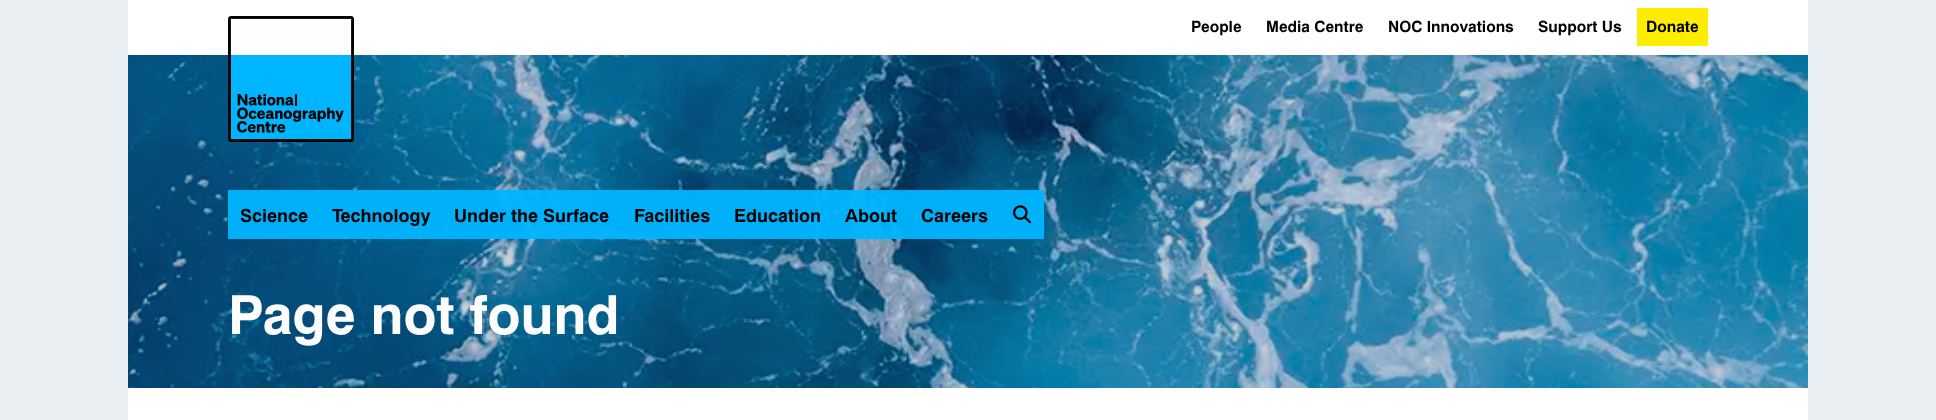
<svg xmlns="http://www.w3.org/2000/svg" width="1936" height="420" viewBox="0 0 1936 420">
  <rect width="100%" height="100%" fill="#eaeff3"/>
  <path d="M128 0h1680v420H128z" fill="#fff"/>
  <path d="M1637 8h71v38H1637z" fill="#ffed00"/>
  <image x="128" y="55" width="1680" height="333" href="img/1.png"/>
  <image x="228" y="16" width="126" height="126" href="img/2.png"/>
  <path d="M228 190h92v49H228z" fill="#00b5fff2"/>
  <path d="M320 190h122v49H320z" fill="#00b5fff2"/>
  <path d="M442 190h180v49H442z" fill="#00b5fff2"/>
  <path d="M622 190h100v49H622z" fill="#00b5fff2"/>
  <path d="M722 190h111v49H722z" fill="#00b5fff2"/>
  <path d="M833 190h76v49H833z" fill="#00b5fff2"/>
  <path d="M909 190h91v49H909z" fill="#00b5fff2"/>
  <path d="M1000 190h44v49H1000z" fill="#00b5fff2"/>
  <image x="1013" y="205" width="18" height="19" href="img/3.png"/>
  <g font-family="'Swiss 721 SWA'" font-size="15.5" font-weight="bold" fill="#010101">
    <text x="1191" y="32">People</text>
    <text x="1266" y="32">Media Centre</text>
    <text x="1388" y="32">NOC Innovations</text>
    <text x="1538" y="32">Support Us</text>
    <text x="1646" y="32">Donate</text>
  </g>
  <text x="228" y="334" font-family="'Swiss 721 SWA'" font-size="54" font-weight="bold" fill="#fdfdfd">Page not found</text>
  <g font-family="'Swiss 721 SWA'" font-size="18" font-weight="bold" fill="#010101">
    <text x="240" y="222">Science</text>
    <text x="332" y="222">Technology</text>
    <text x="454" y="222">Under the Surface</text>
    <text x="634" y="222">Facilities</text>
    <text x="734" y="222">Education</text>
    <text x="845" y="222">About</text>
    <text x="921" y="222">Careers</text>
  </g>
</svg>
